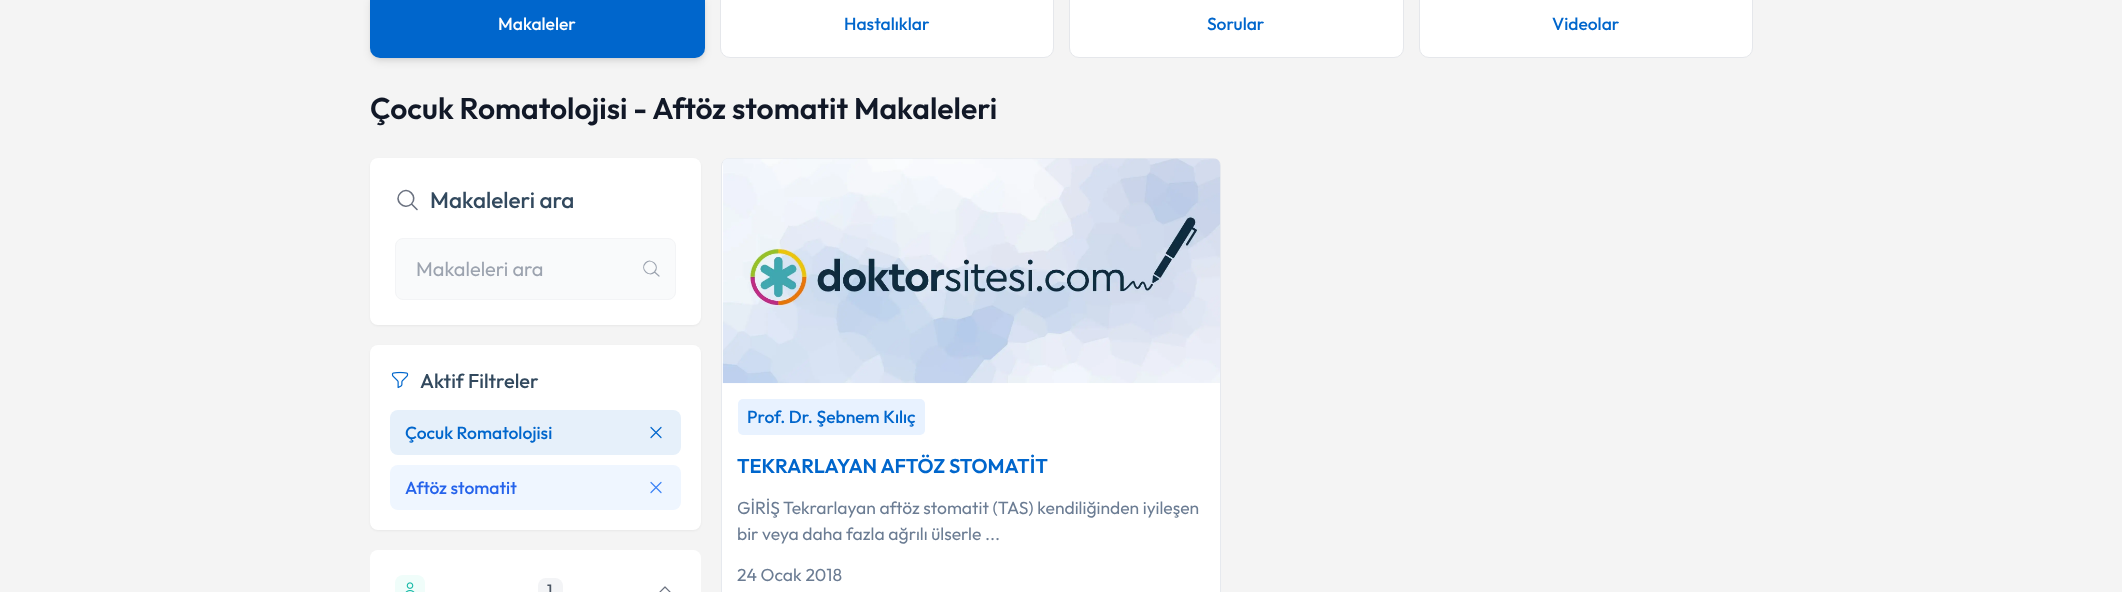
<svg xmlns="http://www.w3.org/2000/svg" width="2122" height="592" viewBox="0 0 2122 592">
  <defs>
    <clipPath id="clip1"><path d="M738 495h467v53H738z"/></clipPath>
  </defs>
  <rect width="100%" height="100%" fill="#f4f4f4"/>
  <rect x="373" y="-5" width="330" height="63" rx="8" fill="#0000001a" filter="blur(2.5px)"/>
  <rect x="371" y="-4" width="333" height="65" rx="9" fill="#0000001a" filter="blur(4px)"/>
  <rect x="370" y="-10" width="335" height="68" rx="10" fill="#06c"/>
  <rect x="720.5" y="-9.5" width="333" height="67" rx="9.5" fill="#fff" stroke="#e5e7eb"/>
  <rect x="1069.5" y="-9.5" width="334" height="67" rx="9.5" fill="#fff" stroke="#e5e7eb"/>
  <rect x="1419.5" y="-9.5" width="333" height="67" rx="9.5" fill="#fff" stroke="#e5e7eb"/>
  <rect x="370" y="159" width="331" height="167" rx="8" fill="#0000000d" filter="blur(1px)"/>
  <rect x="370" y="158" width="331" height="167" rx="8" fill="#fff"/>
  <path d="M417 209.5L411.5 204M411.5 204C418.5 196.5 407.5 185.5 400.5 193C393 200 404 211 411.5 204Z" fill="none" stroke="#6b7280" stroke-width="1.6" stroke-linecap="round" stroke-linejoin="round"/>
  <rect x="395.5" y="238.5" width="280" height="61" rx="7.5" fill="#f9fafb" stroke="#f3f4f6"/>
  <path d="M659 276L654.5 272M654.5 272C660 266 651.5 257.5 645.5 263C640 269 648.5 277.5 654.5 272Z" fill="none" stroke="#9ca3af" stroke-width="1.2" stroke-linecap="round" stroke-linejoin="round"/>
  <rect x="370" y="346" width="331" height="185" rx="8" fill="#0000000d" filter="blur(1px)"/>
  <rect x="370" y="345" width="331" height="185" rx="8" fill="#fff"/>
  <image x="391" y="371" width="18" height="18" href="img/1.png"/>
  <rect x="390" y="410" width="291" height="45" rx="8" fill="#e6f0fa"/>
  <path d="M651 437.5L661 427.5M651 427.5L661 437.5" fill="none" stroke="#06c" stroke-width="1.2" stroke-linecap="round" stroke-linejoin="round"/>
  <rect x="390" y="465" width="291" height="45" rx="8" fill="#eff6ff"/>
  <path d="M651 492.5L661 482.5M651 482.5L661 492.5" fill="none" stroke="#3b82f6" stroke-width="1.2" stroke-linecap="round" stroke-linejoin="round"/>
  <rect x="370" y="550" width="331" height="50" rx="8" fill="#fff"/>
  <rect x="395" y="575" width="30" height="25" rx="8" fill="#f0fdfa"/>
  <image x="405" y="582" width="10" height="10" href="img/2.png"/>
  <rect x="538" y="578" width="25" height="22" rx="8" fill="#f3f4f6"/>
  <path d="M659 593L665 587L671 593" fill="none" stroke="#6b7280" stroke-width="1.2" stroke-linecap="round" stroke-linejoin="round"/>
  <rect x="721.5" y="158.5" width="499" height="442" rx="7.5" fill="#fff" stroke="#e6e9ee"/>
  <image x="722" y="158" width="498" height="226" href="img/3.png"/>
  <rect x="738" y="399" width="187" height="36" rx="5" fill="#e8f2ff"/>
  <text x="498" y="30" font-family="Outfit" font-size="17.5" font-weight="500" fill="#fff">Makaleler</text>
  <g font-family="Outfit" font-size="17.5" font-weight="500" fill="#06c">
    <text x="844" y="30">Hastalıklar</text>
    <text x="1207" y="30">Sorular</text>
    <text x="1552" y="30">Videolar</text>
  </g>
  <text x="370" y="119" font-family="Outfit" font-size="30" font-weight="600" fill="#111827">Çocuk Romatolojisi - Aftöz stomatit Makaleleri</text>
  <text x="430" y="208" font-family="Outfit" font-size="22.5" font-weight="500" fill="#32495e">Makaleleri ara</text>
  <text x="416" y="276" font-family="Outfit" font-size="20" fill="#9ca3af">Makaleleri ara</text>
  <text x="420" y="388" font-family="Outfit" font-size="20" font-weight="500" fill="#32495e">Aktif Filtreler</text>
  <text x="405" y="439" font-family="Outfit" font-size="17.5" font-weight="500" fill="#06c">Çocuk Romatolojisi</text>
  <text x="405" y="494" font-family="Outfit" font-size="17.5" font-weight="500" fill="#2563eb">Aftöz stomatit</text>
  <text x="547" y="595" font-family="Outfit" font-size="15" font-weight="500" fill="#4b5563">1</text>
  <text x="747" y="423" font-family="Outfit" font-size="17.5" font-weight="500" fill="#06c">Prof. Dr. Şebnem Kılıç</text>
  <text x="737" y="473" font-family="Outfit" font-size="20" font-weight="600" fill="#06c">TEKRARLAYAN AFTÖZ STOMATİT</text>
  <g clip-path="url(#clip1)">
    <text x="737" y="514" font-family="Outfit" font-size="17.5" fill="#6b7c93">GİRİŞ</text>
  </g>
  <g font-family="Outfit" font-size="17.5" fill="#6b7c93">
    <text x="783" y="514">Tekrarlayan aftöz stomatit (TAS) kendiliğinden iyileşen</text>
    <text x="737" y="540">bir veya daha fazla ağrılı ülserle ...</text>
    <text x="737" y="581">24 Ocak 2018</text>
  </g>
</svg>
